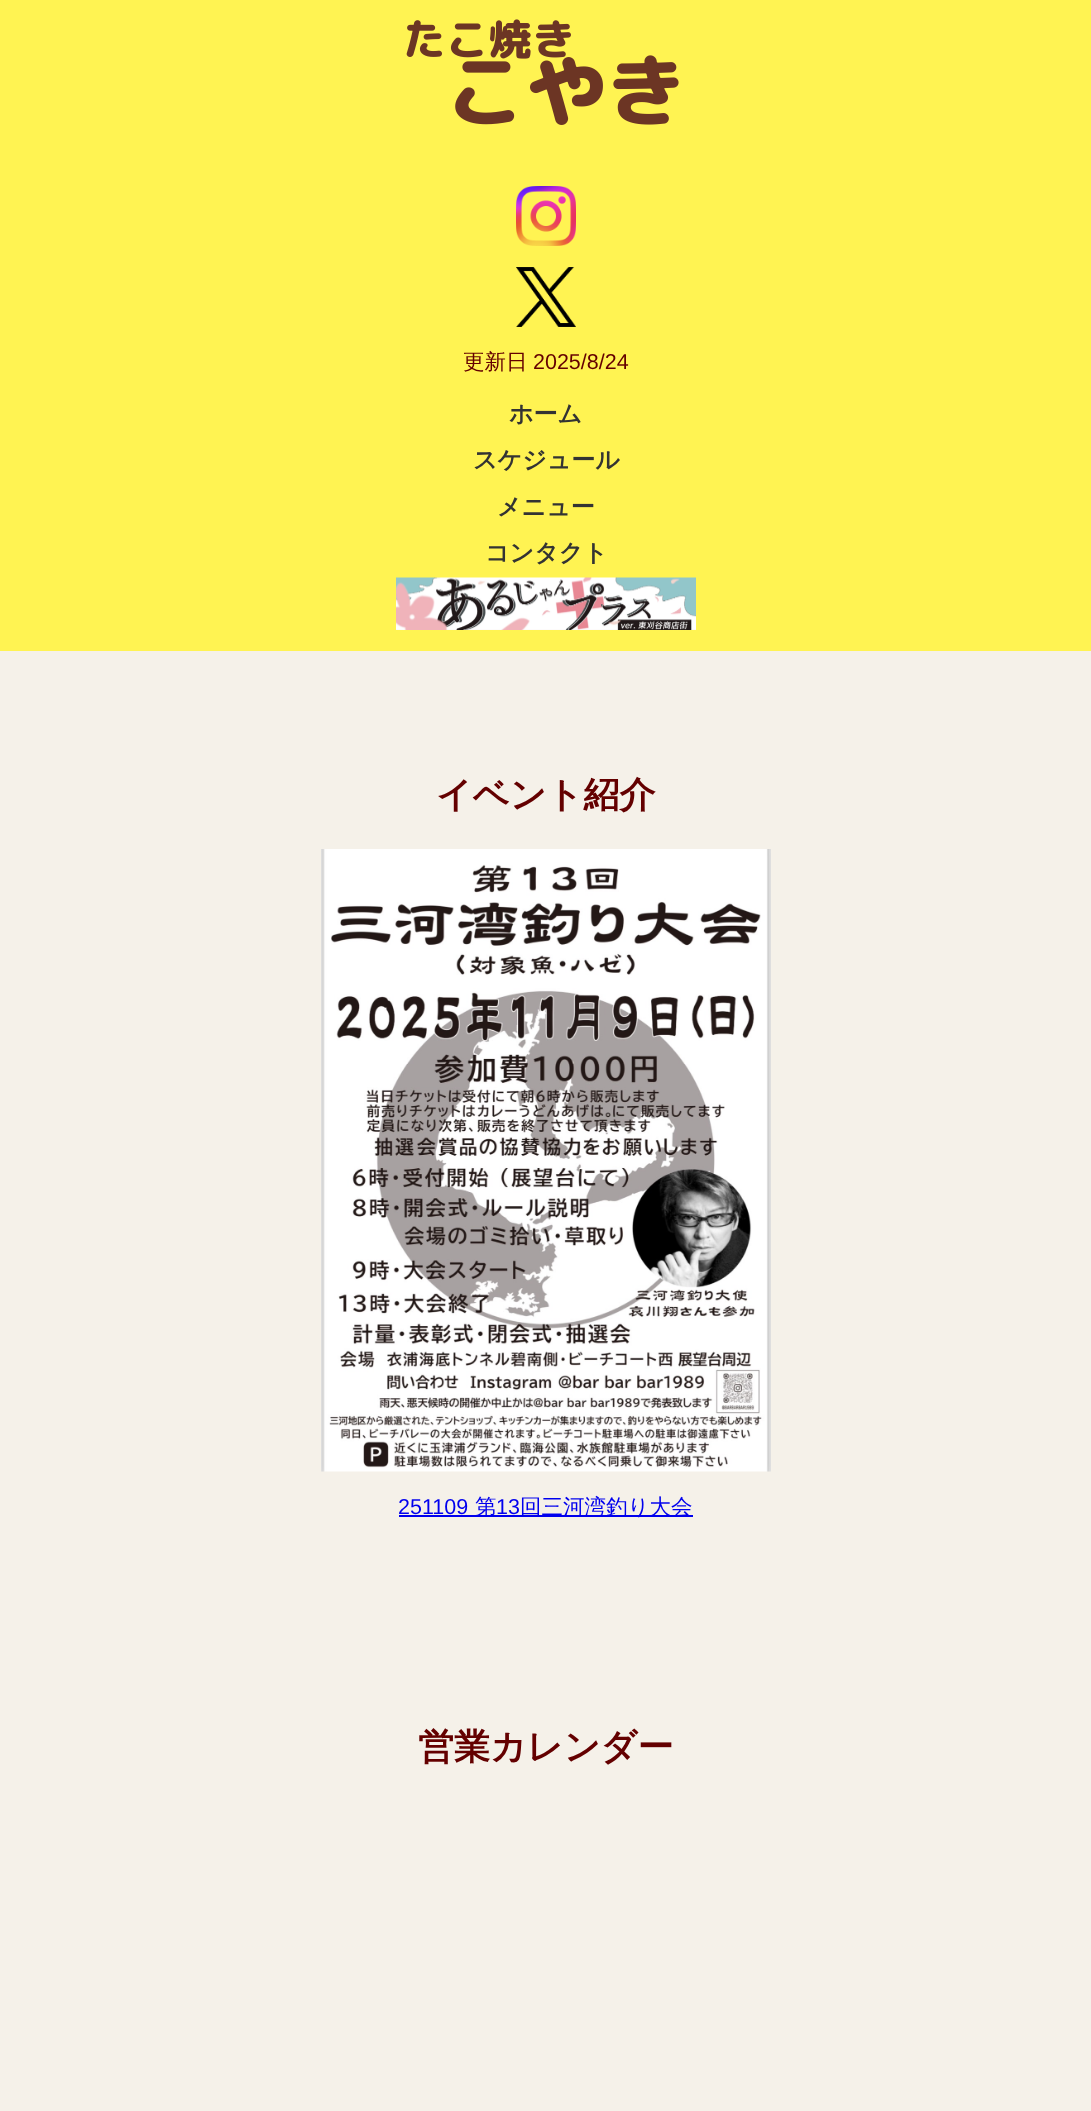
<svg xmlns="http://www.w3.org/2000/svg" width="1091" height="2111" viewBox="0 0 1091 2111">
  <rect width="100%" height="100%" fill="#f5f1e9"/>
  <path d="M0 0h1091v651H0z" fill="#fff352"/>
  <image x="406" y="19" width="273" height="106" href="img/1.png"/>
  <image x="516" y="186" width="60" height="60" href="img/2.png"/>
  <image x="516" y="267" width="60" height="60" href="img/3.png"/>
  <image x="396" y="577" width="300" height="53" href="img/4.png"/>
  <image x="321" y="849" width="450" height="623" href="img/5.png"/>
  <path d="M399 1515h294v2H399z" fill="#00e"/>
  <text x="463" y="369" font-family="WenQuanYi Zen Hei" font-size="21.5" font-weight="500" fill="#640000">更新日</text>
  <text x="533" y="369" font-family="Liberation Sans" font-size="21.5" fill="#640000">2025/8/24</text>
  <g font-family="WenQuanYi Zen Hei" font-size="24" font-weight="bold" fill="#333">
    <text x="509" y="422">ホーム</text>
    <text x="473" y="468">スケジュール</text>
    <text x="497" y="515">メニュー</text>
    <text x="485" y="561">コンタクト</text>
  </g>
  <text x="436" y="807" font-family="WenQuanYi Zen Hei" font-size="36" font-weight="bold" fill="#640000">イベント紹介</text>
  <text x="398" y="1514" font-family="Liberation Sans" font-size="21.5" fill="#00e">251109</text>
  <text x="475" y="1514" font-family="WenQuanYi Zen Hei" font-size="21.5" font-weight="500" fill="#00e">第</text>
  <text x="496" y="1514" font-family="Liberation Sans" font-size="21.5" fill="#00e">13</text>
  <text x="520" y="1514" font-family="WenQuanYi Zen Hei" font-size="21.5" font-weight="500" fill="#00e">回三河湾釣り大会</text>
  <text x="418" y="1759" font-family="WenQuanYi Zen Hei" font-size="36" font-weight="bold" fill="#640000">営業カレンダー</text>
</svg>
